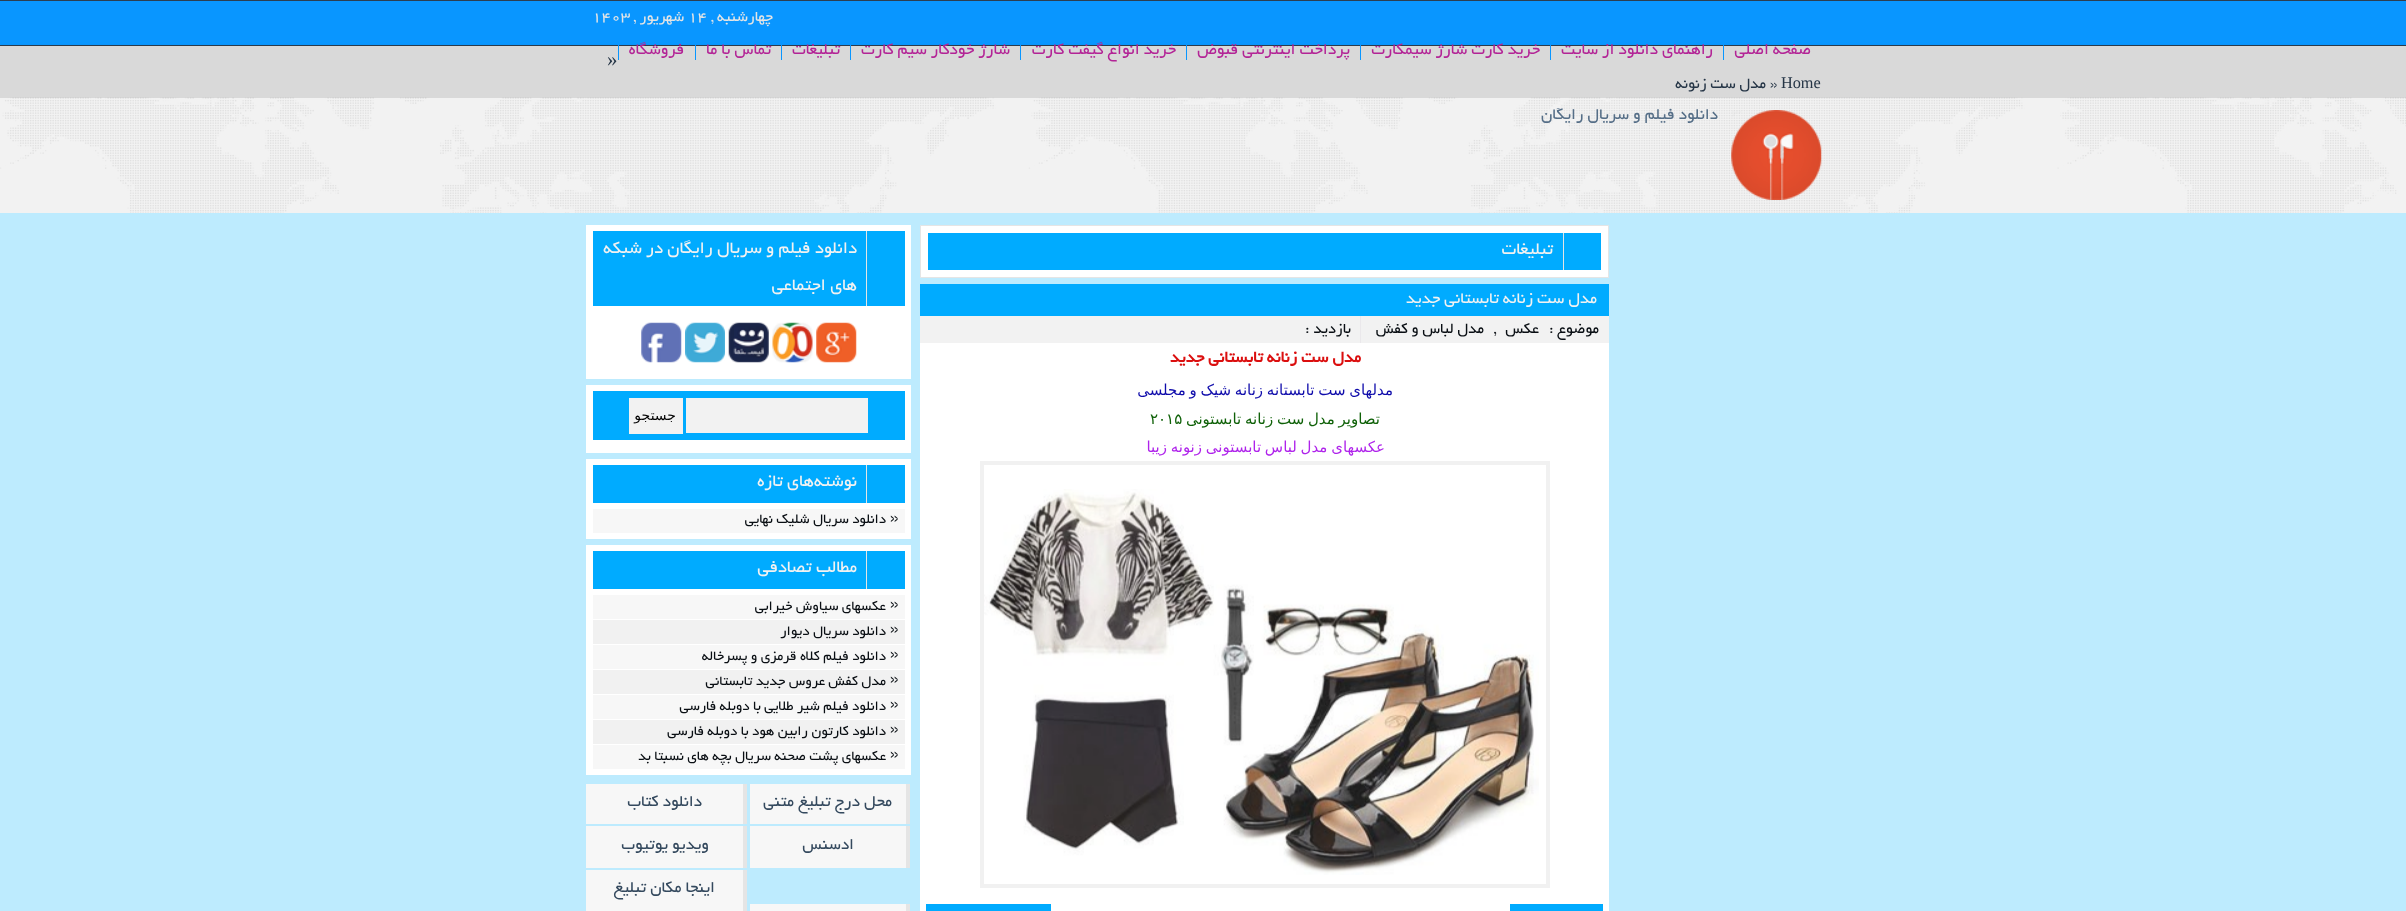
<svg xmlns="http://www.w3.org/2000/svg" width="2406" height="911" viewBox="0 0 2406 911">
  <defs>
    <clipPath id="clip1"><path d="M1224 108h495v17H1224z"/></clipPath>
  </defs>
  <rect width="100%" height="100%" fill="#bdebfe"/>
  <path d="M0 1h2406v44H0z" fill="#0996ff"/>
  <path d="M0 0h2406v1H0z" fill="#2c3e50"/>
  <path d="M0 45h2406v1H0z" fill="#2c3e50"/>
  <path d="M0 46h2406v52H0z" fill="#0000001a" filter="blur(1px)"/>
  <path d="M0 46h2406v52H0z" fill="#d9d9d9"/>
  <path d="M1723 43h1v17H1723z" fill="#0996ff"/>
  <path d="M1550 43h1v17H1550z" fill="#0996ff"/>
  <path d="M1360 43h1v17H1360z" fill="#0996ff"/>
  <path d="M1186 43h1v17H1186z" fill="#0996ff"/>
  <path d="M1020 43h1v17H1020z" fill="#0996ff"/>
  <path d="M850 43h1v17H850z" fill="#0996ff"/>
  <path d="M781 43h1v17H781z" fill="#0996ff"/>
  <path d="M695 43h1v17H695z" fill="#0996ff"/>
  <path d="M618 43h1v17H618z" fill="#0996ff"/>
  <path d="M0 98h2406v115H0z" fill="#f2f2f2"/>
  <image x="0" y="97" width="2406" height="116" href="img/1.png"/>
  <image x="1731" y="110" width="91" height="90" href="img/2.png"/>
  <path d="M920.5 225.5h688v52H920.5z" fill="#fff" stroke="#e5e5e5"/>
  <path d="M928 233h673v37H928z" fill="#00abff"/>
  <path d="M1563 233h1v37H1563z" fill="#e5e5e5"/>
  <path d="M920 343h689v568H920z" fill="#fff"/>
  <path d="M920 284h689v32H920z" fill="#00abff"/>
  <path d="M920 316h689v27H920z" fill="#f2f2f2"/>
  <path d="M1360 316h1v27H1360z" fill="#eae8eb"/>
  <path d="M982 463h566v423H982z" fill="none" stroke="#f1f1f1" stroke-width="4"/>
  <image x="984" y="489" width="555" height="386" href="img/3.png"/>
  <path d="M1510 904h93v7H1510z" fill="#00abff"/>
  <path d="M926 904h125v7H926z" fill="#00abff"/>
  <path d="M586 225h325v154H586z" fill="#fff"/>
  <path d="M593 231h312v75H593z" fill="#00abff"/>
  <path d="M866 231h1v75H866z" fill="#e5e5e5"/>
  <image x="816" y="322" width="41" height="41" href="img/4.png"/>
  <image x="772" y="322" width="41" height="41" href="img/5.png"/>
  <image x="728" y="322" width="41" height="41" href="img/6.png"/>
  <image x="685" y="322" width="40" height="41" href="img/7.png"/>
  <image x="641" y="322" width="41" height="41" href="img/8.png"/>
  <path d="M586 385h325v68H586z" fill="#fff"/>
  <path d="M593 391h312v49H593z" fill="#00abff"/>
  <path d="M686 398h182v35H686z" fill="#f2f2f2"/>
  <path d="M629 398h54v36H629z" fill="#f2f2f2"/>
  <path d="M586 459h325v80H586z" fill="#fff"/>
  <path d="M593 465h312v38H593z" fill="#00abff"/>
  <path d="M866 465h1v38H866z" fill="#e5e5e5"/>
  <path d="M593 509h312v24H593z" fill="#f7f7f7"/>
  <path d="M586 545h325v230H586z" fill="#fff"/>
  <path d="M593 551h312v38H593z" fill="#00abff"/>
  <path d="M866 551h1v38H866z" fill="#e5e5e5"/>
  <path d="M593 595h312v24H593z" fill="#f7f7f7"/>
  <path d="M593 620h312v24H593z" fill="#f1f1f1"/>
  <path d="M593 645h312v24H593z" fill="#f7f7f7"/>
  <path d="M593 670h312v24H593z" fill="#f1f1f1"/>
  <path d="M593 695h312v24H593z" fill="#f7f7f7"/>
  <path d="M593 720h312v24H593z" fill="#f1f1f1"/>
  <path d="M593 745h312v24H593z" fill="#f7f7f7"/>
  <path d="M750 784h156v40H750z" fill="#f7f7f7"/>
  <path d="M906 784h4v40H906z" fill="#e5e5e5"/>
  <path d="M586 784h157v40H586z" fill="#f7f7f7"/>
  <path d="M743 784h4v40H743z" fill="#e5e5e5"/>
  <path d="M750 826h156v42H750z" fill="#f7f7f7"/>
  <path d="M906 826h4v42H906z" fill="#e5e5e5"/>
  <path d="M586 826h157v42H586z" fill="#f7f7f7"/>
  <path d="M743 826h4v42H743z" fill="#e5e5e5"/>
  <path d="M586 870h157v41H586z" fill="#f7f7f7"/>
  <path d="M743 870h4v41H743z" fill="#e5e5e5"/>
  <path d="M750 904h160v7H750z" fill="#f7f7f7"/>
  <path d="M906 904h4v7H906z" fill="#e5e5e5"/>
  <text x="773" y="21" font-family="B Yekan" font-size="16.25" direction="rtl" fill="#e5e5e5">چهارشنبه ,</text>
  <text x="688" y="21" font-family="B Yekan" font-size="16.25" fill="#e5e5e5">۱۴</text>
  <text x="684" y="21" font-family="B Yekan" font-size="16.25" direction="rtl" fill="#e5e5e5">شهریور ,</text>
  <text x="592" y="21" font-family="B Yekan" font-size="16.25" fill="#e5e5e5">۱۴۰۳</text>
  <g font-family="B Yekan" font-size="17.5" direction="rtl" fill="#b32496">
    <text x="1811" y="54">صفحه اصلی</text>
    <text x="1713" y="54">راهنمای دانلود از سایت</text>
    <text x="1540" y="54">خرید کارت شارژ سیمکارت</text>
    <text x="1350" y="54">پرداخت اینترنتی قبوض</text>
    <text x="1176" y="54">خرید انواع گیفت کارت</text>
    <text x="1010" y="54">شارژ خودکار سیم کارت</text>
    <text x="840" y="54">تبلیغات</text>
    <text x="771" y="54">تماس با ما</text>
    <text x="684" y="54">فروشگاه</text>
  </g>
  <text x="607" y="66" font-family="Liberation Serif" font-size="21" fill="#253546">»</text>
  <text x="1781" y="88" font-family="Liberation Serif" font-size="16.25" fill="#253546">Home</text>
  <text x="1770" y="88" font-family="B Yekan" font-size="16.25" fill="#253546">»</text>
  <text x="1766" y="88" font-family="B Yekan" font-size="16.25" direction="rtl" fill="#253546">مدل ست زنونه</text>
  <g clip-path="url(#clip1)">
    <text x="1718" y="119" font-family="B Yekan" font-size="17.5" direction="rtl" fill="#556e87">دانلود فیلم و سریال رایگان</text>
  </g>
  <text x="1553" y="254" font-family="B Yekan" font-size="18.75" direction="rtl" fill="#f2f2f2">تبلیغات</text>
  <text x="1597" y="303" font-family="B Yekan" font-size="17.5" direction="rtl" fill="#f2f2f2">مدل ست زنانه تابستانی جدید</text>
  <g font-family="B Yekan" font-size="16.25" direction="rtl" fill="#090e13">
    <text x="1599" y="333">موضوع :</text>
    <text x="1539" y="333">عکس</text>
  </g>
  <text x="1494" y="333" font-family="B Yekan" font-size="16.25" fill="#090e13">,</text>
  <g font-family="B Yekan" font-size="16.25" direction="rtl" fill="#090e13">
    <text x="1484" y="333">مدل لباس و کفش</text>
    <text x="1351" y="333">بازدید :</text>
  </g>
  <text x="1361" y="362" font-family="B Yekan" font-size="17.5" font-weight="bold" direction="rtl" fill="#db0f0f">مدل ست زنانه تابستانی جدید</text>
  <text x="1393" y="395" word-spacing="-1" font-family="DejaVu Sans" font-size="15" direction="rtl" fill="#0f0cab">مدلهای ست تابستانه زنانه شیک و مجلسی</text>
  <text x="1380" y="424" word-spacing="-1" font-family="DejaVu Sans" font-size="15" direction="rtl" fill="#0f6108">تصاویر مدل ست زنانه تابستونی</text>
  <text x="1150" y="424" font-family="DejaVu Sans" font-size="15" fill="#0f6108">۲۰۱۵</text>
  <text x="1385" y="452" word-spacing="-1" font-family="DejaVu Sans" font-size="15" direction="rtl" fill="#af23eb">عکسهای مدل لباس تابستونی زنونه زیبا</text>
  <g font-family="B Yekan" font-size="18.75" direction="rtl" fill="#f2f2f2">
    <text x="857" y="253">دانلود فیلم و سریال رایگان در شبکه</text>
    <text x="857" y="290">های اجتماعی</text>
  </g>
  <text x="676" y="420" font-family="DejaVu Sans" font-size="14" direction="rtl" fill="#000">جستجو</text>
  <text x="857" y="486" font-family="B Yekan" font-size="18.75" direction="rtl" fill="#f2f2f2">نوشته‌های تازه</text>
  <text x="890" y="522" font-family="B Yekan" font-size="18.75" fill="#090e13">»</text>
  <text x="886" y="523" font-family="B Yekan" font-size="15" direction="rtl" fill="#090e13">دانلود سریال شلیک نهایی</text>
  <text x="857" y="572" font-family="B Yekan" font-size="18.75" direction="rtl" fill="#f2f2f2">مطالب تصادفی</text>
  <text x="890" y="608" font-family="B Yekan" font-size="18.75" fill="#090e13">»</text>
  <text x="886" y="610" font-family="B Yekan" font-size="15" direction="rtl" fill="#090e13">عکسهای سیاوش خیرابی</text>
  <text x="890" y="633" font-family="B Yekan" font-size="18.75" fill="#090e13">»</text>
  <text x="886" y="635" font-family="B Yekan" font-size="15" direction="rtl" fill="#090e13">دانلود سریال دیوار</text>
  <text x="890" y="658" font-family="B Yekan" font-size="18.75" fill="#090e13">»</text>
  <text x="886" y="660" font-family="B Yekan" font-size="15" direction="rtl" fill="#090e13">دانلود فیلم کلاه قرمزی و پسرخاله</text>
  <text x="890" y="683" font-family="B Yekan" font-size="18.75" fill="#090e13">»</text>
  <text x="886" y="685" font-family="B Yekan" font-size="15" direction="rtl" fill="#090e13">مدل کفش عروس جدید تابستانی</text>
  <text x="890" y="708" font-family="B Yekan" font-size="18.75" fill="#090e13">»</text>
  <text x="886" y="710" font-family="B Yekan" font-size="15" direction="rtl" fill="#090e13">دانلود فیلم شیر طلایی با دوبله فارسی</text>
  <text x="890" y="733" font-family="B Yekan" font-size="18.75" fill="#090e13">»</text>
  <text x="886" y="735" font-family="B Yekan" font-size="15" direction="rtl" fill="#090e13">دانلود کارتون رابین هود با دوبله فارسی</text>
  <text x="890" y="758" font-family="B Yekan" font-size="18.75" fill="#090e13">»</text>
  <text x="886" y="760" font-family="B Yekan" font-size="15" direction="rtl" fill="#090e13">عکسهای پشت صحنه سریال بچه های نسبتا بد</text>
  <g font-family="B Yekan" font-size="17.5" direction="rtl" fill="#34495e">
    <text x="892" y="806">محل درج تبلیغ متنی</text>
    <text x="702" y="806">دانلود کتاب</text>
    <text x="854" y="849">ادسنس</text>
    <text x="709" y="849">ویدیو یوتیوب</text>
    <text x="715" y="892">اینجا مکان تبلیغ</text>
  </g>
</svg>
